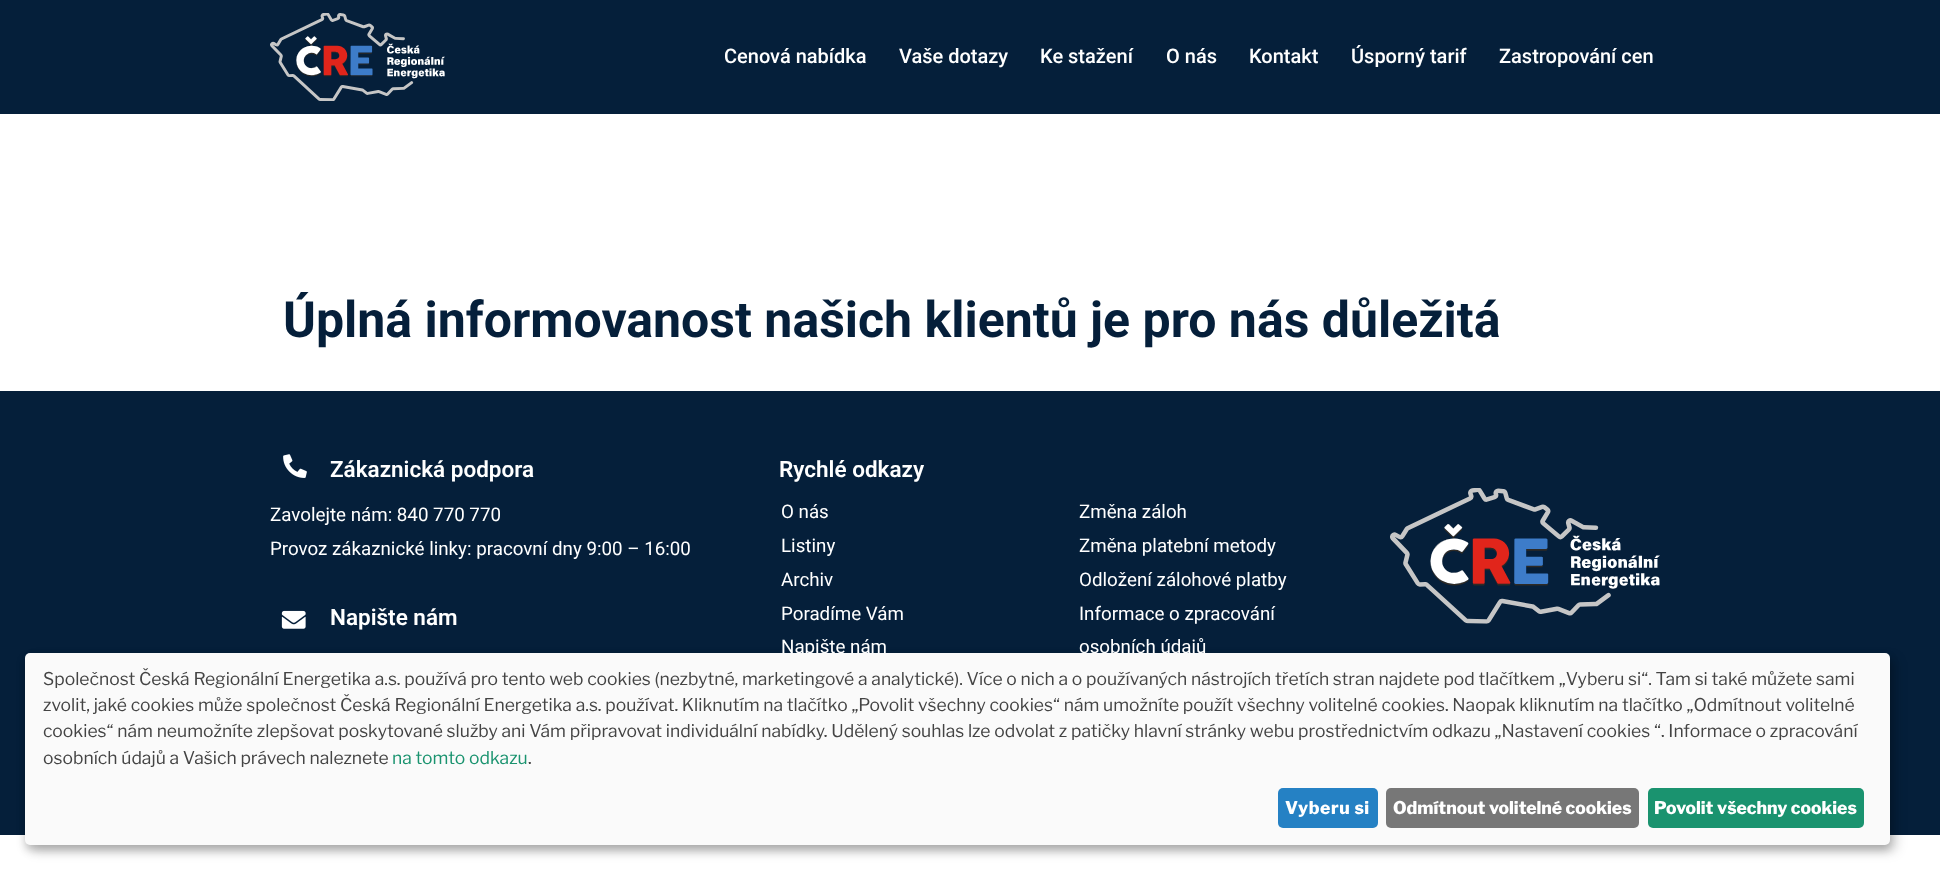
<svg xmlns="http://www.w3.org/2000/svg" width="1940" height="869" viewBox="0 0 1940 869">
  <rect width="100%" height="100%" fill="#fff"/>
  <path d="M0 0h1940v114H0z" fill="#051f3a"/>
  <image x="270" y="13" width="175" height="88" href="img/1.png"/>
  <path d="M0 391h1940v444H0z" fill="#051f3a"/>
  <image x="283" y="454" width="24" height="24" href="img/2.png"/>
  <image x="281" y="610" width="25" height="19" href="img/3.png"/>
  <image x="1390" y="488" width="270" height="136" href="img/4.png"/>
  <rect x="31" y="659" width="1865" height="192" rx="5" fill="#00000030" filter="blur(6px)"/>
  <rect x="25" y="658" width="1865" height="192" rx="5" fill="#00000033" filter="blur(4px)"/>
  <g font-family="Roboto" font-size="20" font-weight="500" fill="#fff">
    <text x="724" y="63">Cenová nabídka</text>
    <text x="899" y="63">Vaše dotazy</text>
    <text x="1040" y="63">Ke stažení</text>
    <text x="1166" y="63">O nás</text>
    <text x="1249" y="63">Kontakt</text>
    <text x="1351" y="63">Úsporný tarif</text>
    <text x="1499" y="63">Zastropování cen</text>
  </g>
  <text x="283" y="337" font-family="Roboto" font-size="50" font-weight="bold" fill="#051f3a">Úplná informovanost našich klientů je pro nás důležitá</text>
  <text x="330" y="477" font-family="Roboto" font-size="22.5" font-weight="600" fill="#fff">Zákaznická podpora</text>
  <g font-family="Roboto" font-size="18.75" fill="#fff">
    <text x="270" y="521">Zavolejte nám: 840 770 770</text>
    <text x="270" y="555">Provoz zákaznické linky: pracovní dny 9:00 – 16:00</text>
  </g>
  <g font-family="Roboto" font-size="22.5" font-weight="600" fill="#fff">
    <text x="330" y="625">Napište nám</text>
    <text x="779" y="477">Rychlé odkazy</text>
  </g>
  <g font-family="Roboto" font-size="18.75" fill="#fff">
    <text x="781" y="518">O nás</text>
    <text x="781" y="552">Listiny</text>
    <text x="781" y="586">Archiv</text>
    <text x="781" y="620">Poradíme Vám</text>
    <text x="781" y="653">Napište nám</text>
    <text x="1079" y="518">Změna záloh</text>
    <text x="1079" y="552">Změna platební metody</text>
    <text x="1079" y="586">Odložení zálohové platby</text>
    <text x="1079" y="620">Informace o zpracování</text>
    <text x="1079" y="653">osobních údajů</text>
  </g>
  <rect x="25" y="653" width="1865" height="192" rx="5" fill="#fafafa"/>
  <g font-family="Libre Franklin" font-size="17.5" font-weight="100" fill="#444">
    <text x="43" y="685">Společnost Česká Regionální Energetika a.s. používá pro tento web cookies (nezbytné, marketingové a analytické). Více o nich a o používaných nástrojích třetích stran najdete pod tlačítkem „Vyberu si“. Tam si také můžete sami</text>
    <text x="43" y="711">zvolit, jaké cookies může společnost Česká Regionální Energetika a.s. používat. Kliknutím na tlačítko „Povolit všechny cookies“ nám umožníte použít všechny volitelné cookies. Naopak kliknutím na tlačítko „Odmítnout volitelné</text>
    <text x="43" y="737">cookies“ nám neumožníte zlepšovat poskytované služby ani Vám připravovat individuální nabídky. Udělený souhlas lze odvolat z patičky hlavní stránky webu prostřednictvím odkazu „Nastavení cookies “. Informace o zpracování</text>
    <text x="43" y="764">osobních údajů a Vašich právech naleznete</text>
  </g>
  <text x="392" y="764" font-family="Libre Franklin" font-size="17.5" font-weight="100" fill="#1a936f">na tomto odkazu</text>
  <text x="528" y="764" font-family="Libre Franklin" font-size="17.5" font-weight="100" fill="#444">.</text>
  <rect x="1278" y="788" width="100" height="40" rx="5" fill="#2581c4"/>
  <text x="1285" y="814" font-family="'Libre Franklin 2'" font-size="17.5" font-weight="100" letter-spacing="0.6" fill="#fff">Vyberu si</text>
  <rect x="1386" y="788" width="253" height="40" rx="5" fill="#777"/>
  <text x="1393" y="814" font-family="'Libre Franklin 2'" font-size="17.5" font-weight="100" fill="#fff">Odmítnout volitelné cookies</text>
  <rect x="1648" y="788" width="216" height="40" rx="5" fill="#1a936f"/>
  <text x="1654" y="814" font-family="'Libre Franklin 2'" font-size="17.5" font-weight="100" fill="#fff">Povolit všechny cookies</text>
</svg>
